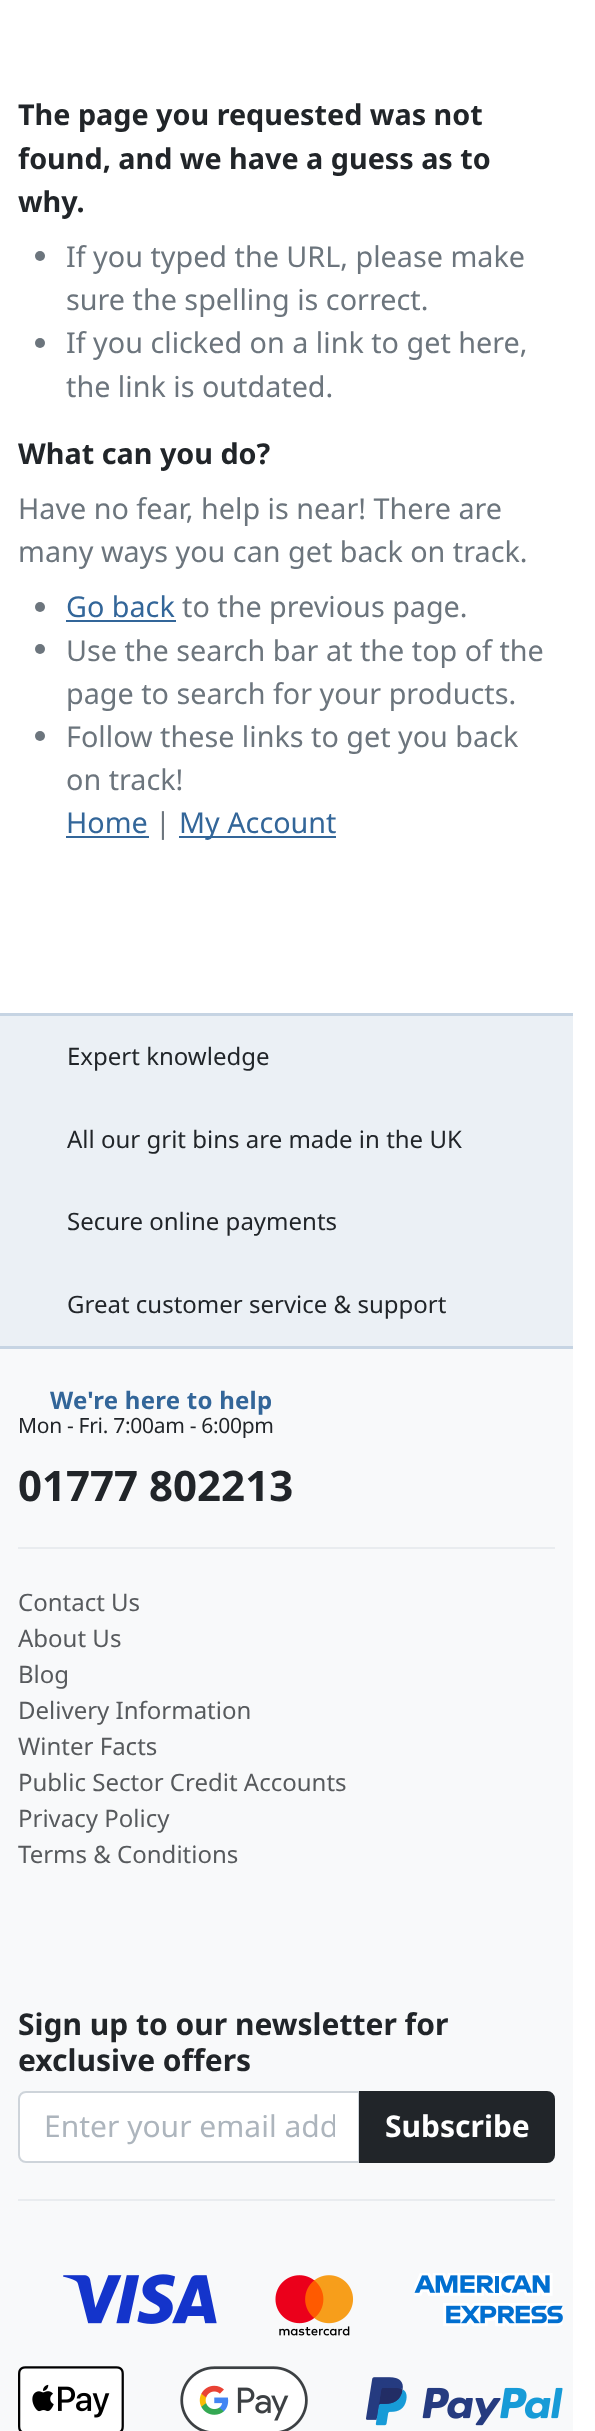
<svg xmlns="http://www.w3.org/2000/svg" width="595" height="2431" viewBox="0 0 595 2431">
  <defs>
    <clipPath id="clip1"><path d="M44 2106h291v41H44z"/></clipPath>
  </defs>
  <rect width="100%" height="100%" fill="#fff"/>
  <circle cx="40" cy="256" r="5" fill="#6c757d"/>
  <circle cx="40" cy="343" r="5" fill="#6c757d"/>
  <circle cx="40" cy="607" r="5" fill="#6c757d"/>
  <path d="M66 620h110v2H66z" fill="#369"/>
  <circle cx="40" cy="649" r="5" fill="#6c757d"/>
  <circle cx="40" cy="736" r="5" fill="#6c757d"/>
  <path d="M66 836h83v2H66z" fill="#369"/>
  <path d="M179 836h157v2H179z" fill="#369"/>
  <path d="M0 1016h573v330H0z" fill="#ebf0f5"/>
  <path d="M0 1013h573v3H0z" fill="#c6d4e3"/>
  <path d="M0 1346h573v3H0z" fill="#c6d4e3"/>
  <path d="M0 1349h573v1082H0z" fill="#f8f9fa"/>
  <path d="M18 1547h537v2H18z" fill="#e9ecef"/>
  <path d="M18 2199h537v2H18z" fill="#e9ecef"/>
  <path d="M26 2092H359V2162H26C22 2162 19 2159 19 2155V2099C19 2095 22 2092 26 2092Z" fill="#fff" stroke="#ced4da" stroke-width="2"/>
  <path d="M360 2092H547C551 2092 554 2095 554 2099V2155C554 2159 551 2162 547 2162H360Z" fill="#212529" stroke="#212529" stroke-width="2"/>
  <image x="18" y="2273" width="545" height="158" href="img/1.png"/>
  <g font-family="Noto Sans" font-size="28.75" font-weight="bold" fill="#212529">
    <text x="18" y="125">The page you requested was not</text>
    <text x="18" y="169">found, and we have a guess as to</text>
    <text x="18" y="212">why.</text>
  </g>
  <g font-family="Noto Sans" font-size="28.75" fill="#6c757d">
    <text x="66" y="267">If you typed the URL, please make</text>
    <text x="66" y="310">sure the spelling is correct.</text>
    <text x="66" y="353">If you clicked on a link to get here,</text>
    <text x="66" y="397">the link is outdated.</text>
  </g>
  <text x="18" y="464" font-family="Noto Sans" font-size="28.75" font-weight="bold" fill="#212529">What can you do?</text>
  <g font-family="Noto Sans" font-size="28.75" fill="#6c757d">
    <text x="18" y="519">Have no fear, help is near! There are</text>
    <text x="18" y="562">many ways you can get back on track.</text>
  </g>
  <text x="66" y="617" font-family="Noto Sans" font-size="28.75" fill="#369">Go back</text>
  <g font-family="Noto Sans" font-size="28.75" fill="#6c757d">
    <text x="182" y="617">to the previous page.</text>
    <text x="66" y="661">Use the search bar at the top of the</text>
    <text x="66" y="704">page to search for your products.</text>
    <text x="66" y="747">Follow these links to get you back</text>
    <text x="66" y="790">on track!</text>
  </g>
  <text x="66" y="833" font-family="Noto Sans" font-size="28.75" fill="#369">Home</text>
  <text x="155" y="833" font-family="Noto Sans" font-size="28.75" fill="#6c757d">|</text>
  <text x="179" y="833" font-family="Noto Sans" font-size="28.75" fill="#369">My Account</text>
  <g font-family="Noto Sans" font-size="24" fill="#212529">
    <text x="67" y="1065">Expert knowledge</text>
    <text x="67" y="1148">All our grit bins are made in the UK</text>
    <text x="67" y="1230">Secure online payments</text>
    <text x="67" y="1313">Great customer service &amp; support</text>
  </g>
  <text x="50" y="1409" font-family="Noto Sans" font-size="24" font-weight="bold" letter-spacing="0.25" fill="#369">We're here to help</text>
  <text x="18" y="1433" font-family="Noto Sans" font-size="21" letter-spacing="-0.3" fill="#212529">Mon - Fri. 7:00am - 6:00pm</text>
  <text x="18" y="1501" font-family="Noto Sans" font-size="42" font-weight="bold" fill="#212529">01777 802213</text>
  <g font-family="Noto Sans" font-size="24" fill="#575a5d">
    <text x="18" y="1611">Contact Us</text>
    <text x="18" y="1647">About Us</text>
    <text x="18" y="1683">Blog</text>
    <text x="18" y="1719">Delivery Information</text>
    <text x="18" y="1755">Winter Facts</text>
    <text x="18" y="1791">Public Sector Credit Accounts</text>
    <text x="18" y="1827">Privacy Policy</text>
    <text x="18" y="1863">Terms &amp; Conditions</text>
  </g>
  <g font-family="Noto Sans" font-size="30" font-weight="bold" fill="#212529">
    <text x="18" y="2035">Sign up to our newsletter for</text>
    <text x="18" y="2071">exclusive offers</text>
  </g>
  <g clip-path="url(#clip1)">
    <text x="44" y="2137" font-family="Noto Sans" font-size="30" fill="#adb5bd">Enter your email add</text>
  </g>
  <text x="385" y="2137" font-family="Noto Sans" font-size="30" font-weight="bold" fill="#fff">Subscribe</text>
</svg>
